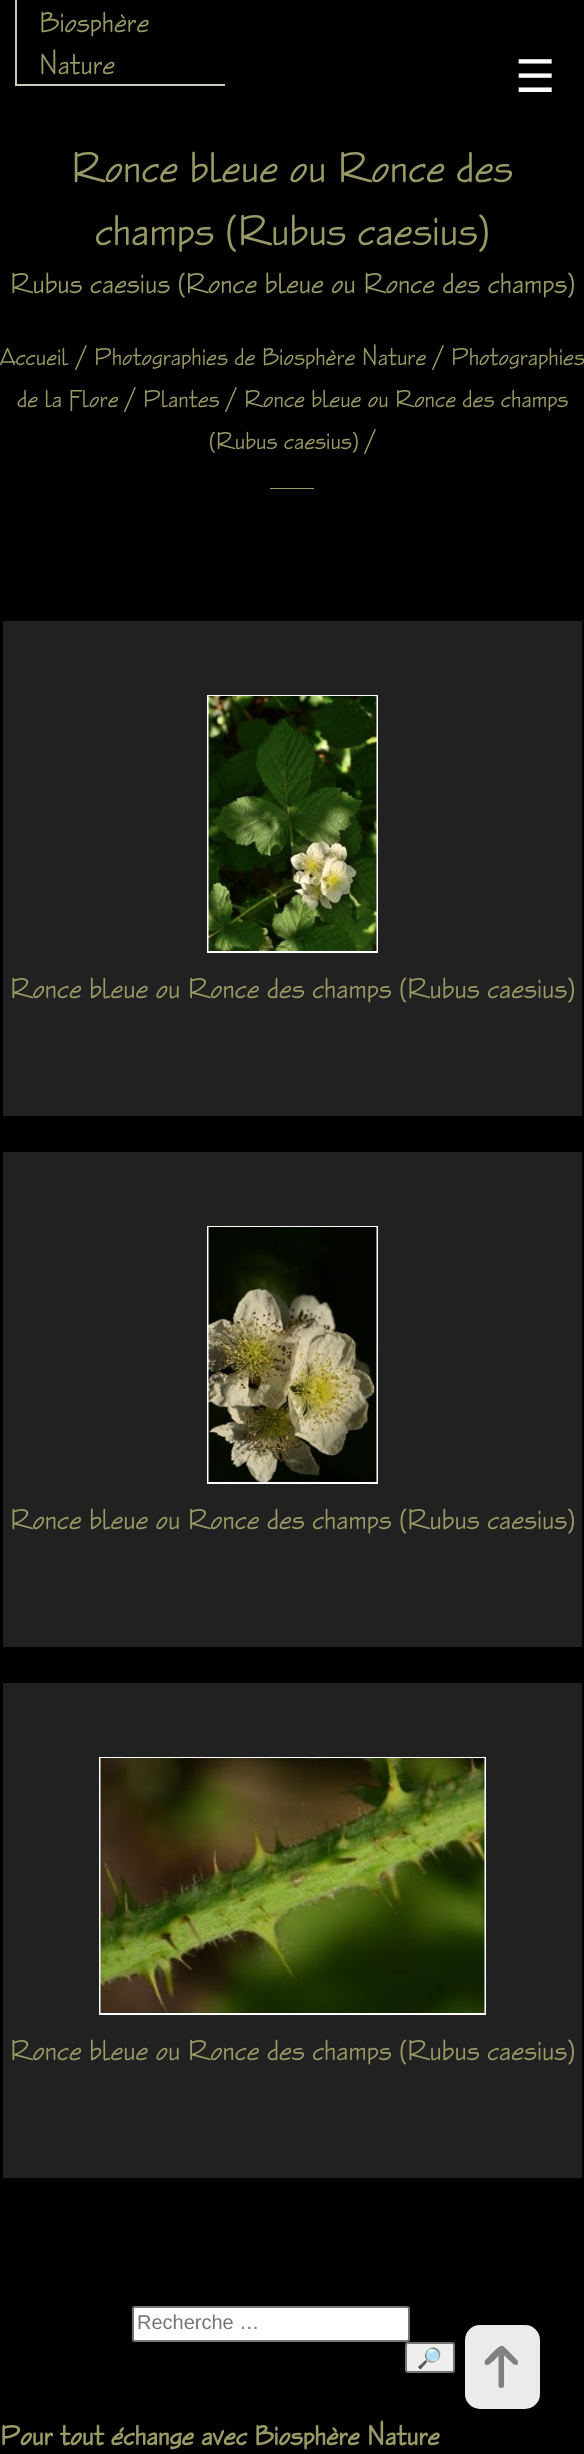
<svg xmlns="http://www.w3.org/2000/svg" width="584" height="2454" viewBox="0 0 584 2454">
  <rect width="100%" height="100%" fill="#000"/>
  <path d="M15 84h210v2H15z" fill="#ccccb2"/>
  <path d="M15 0h2v86H15z" fill="#ccccb2"/>
  <path d="M270 488h44v1H270z" fill="#996"/>
  <path d="M3 621h579v495H3z" fill="#212121"/>
  <path d="M208 696h169v256H208z" fill="none" stroke="#fff" stroke-width="2"/>
  <image x="208" y="696" width="169" height="255" href="img/1.png"/>
  <path d="M3 1152h579v495H3z" fill="#212121"/>
  <path d="M208 1227h169v256H208z" fill="none" stroke="#fff" stroke-width="2"/>
  <image x="208" y="1227" width="169" height="255" href="img/2.png"/>
  <path d="M3 1683h579v495H3z" fill="#212121"/>
  <path d="M100 1758h385v256H100z" fill="none" stroke="#fff" stroke-width="2"/>
  <image x="100" y="1758" width="385" height="255" href="img/3.png"/>
  <rect x="133" y="2307" width="276" height="34" rx="2" fill="#fff" stroke="#767676" stroke-width="2"/>
  <rect x="406" y="2343" width="48" height="29" rx="2" fill="#efefef" stroke="#767676" stroke-width="2"/>
  <rect x="465" y="2325" width="75" height="84" rx="15" fill="#edeaea"/>
  <image x="484" y="2345" width="34" height="43" href="img/4.png"/>
  <g font-family="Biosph" font-size="30" fill="#996">
    <text x="39" y="32">Biosphère</text>
    <text x="39" y="74">Nature</text>
  </g>
  <text x="515" y="92" font-family="DejaVu Sans" font-size="45" fill="#fff">☰</text>
  <g font-family="Biosph" font-size="45" fill="#996">
    <text x="71" y="182">Ronce bleue ou Ronce des</text>
    <text x="95" y="245">champs (Rubus caesius)</text>
  </g>
  <text x="10" y="293" font-family="Biosph" font-size="30" fill="#996">Rubus caesius (Ronce bleue ou Ronce des champs)</text>
  <text x="0" y="365" font-family="Biosph" font-size="25.5" fill="#996">Accueil</text>
  <text x="77" y="365" font-family="Biosph" font-size="30" fill="#996">/</text>
  <text x="94" y="365" font-family="Biosph" font-size="25.5" fill="#996">Photographies de Biosphère Nature</text>
  <text x="434" y="365" font-family="Biosph" font-size="30" fill="#996">/</text>
  <g font-family="Biosph" font-size="25.5" fill="#996">
    <text x="451" y="365">Photographies</text>
    <text x="17" y="407">de la Flore</text>
  </g>
  <text x="126" y="407" font-family="Biosph" font-size="30" fill="#996">/</text>
  <text x="143" y="407" font-family="Biosph" font-size="25.5" fill="#996">Plantes</text>
  <text x="227" y="407" font-family="Biosph" font-size="30" fill="#996">/</text>
  <g font-family="Biosph" font-size="25.5" fill="#996">
    <text x="244" y="407">Ronce bleue ou Ronce des champs</text>
    <text x="209" y="449">(Rubus caesius)</text>
  </g>
  <g font-family="Biosph" font-size="30" fill="#996">
    <text x="366" y="449">/</text>
    <text x="10" y="998">Ronce bleue ou Ronce des champs (Rubus caesius)</text>
    <text x="10" y="1529">Ronce bleue ou Ronce des champs (Rubus caesius)</text>
    <text x="10" y="2060">Ronce bleue ou Ronce des champs (Rubus caesius)</text>
  </g>
  <text x="137" y="2329" font-family="Liberation Sans" font-size="20" fill="#757575">Recherche …</text>
  <text x="417" y="2365" font-family="Noto Color Emoji" font-size="20" fill="#000">🔎</text>
  <text x="0" y="2445" font-family="Biosph" font-size="28.75" font-weight="bold" fill="#996">Pour tout échange avec Biosphère Nature</text>
</svg>
